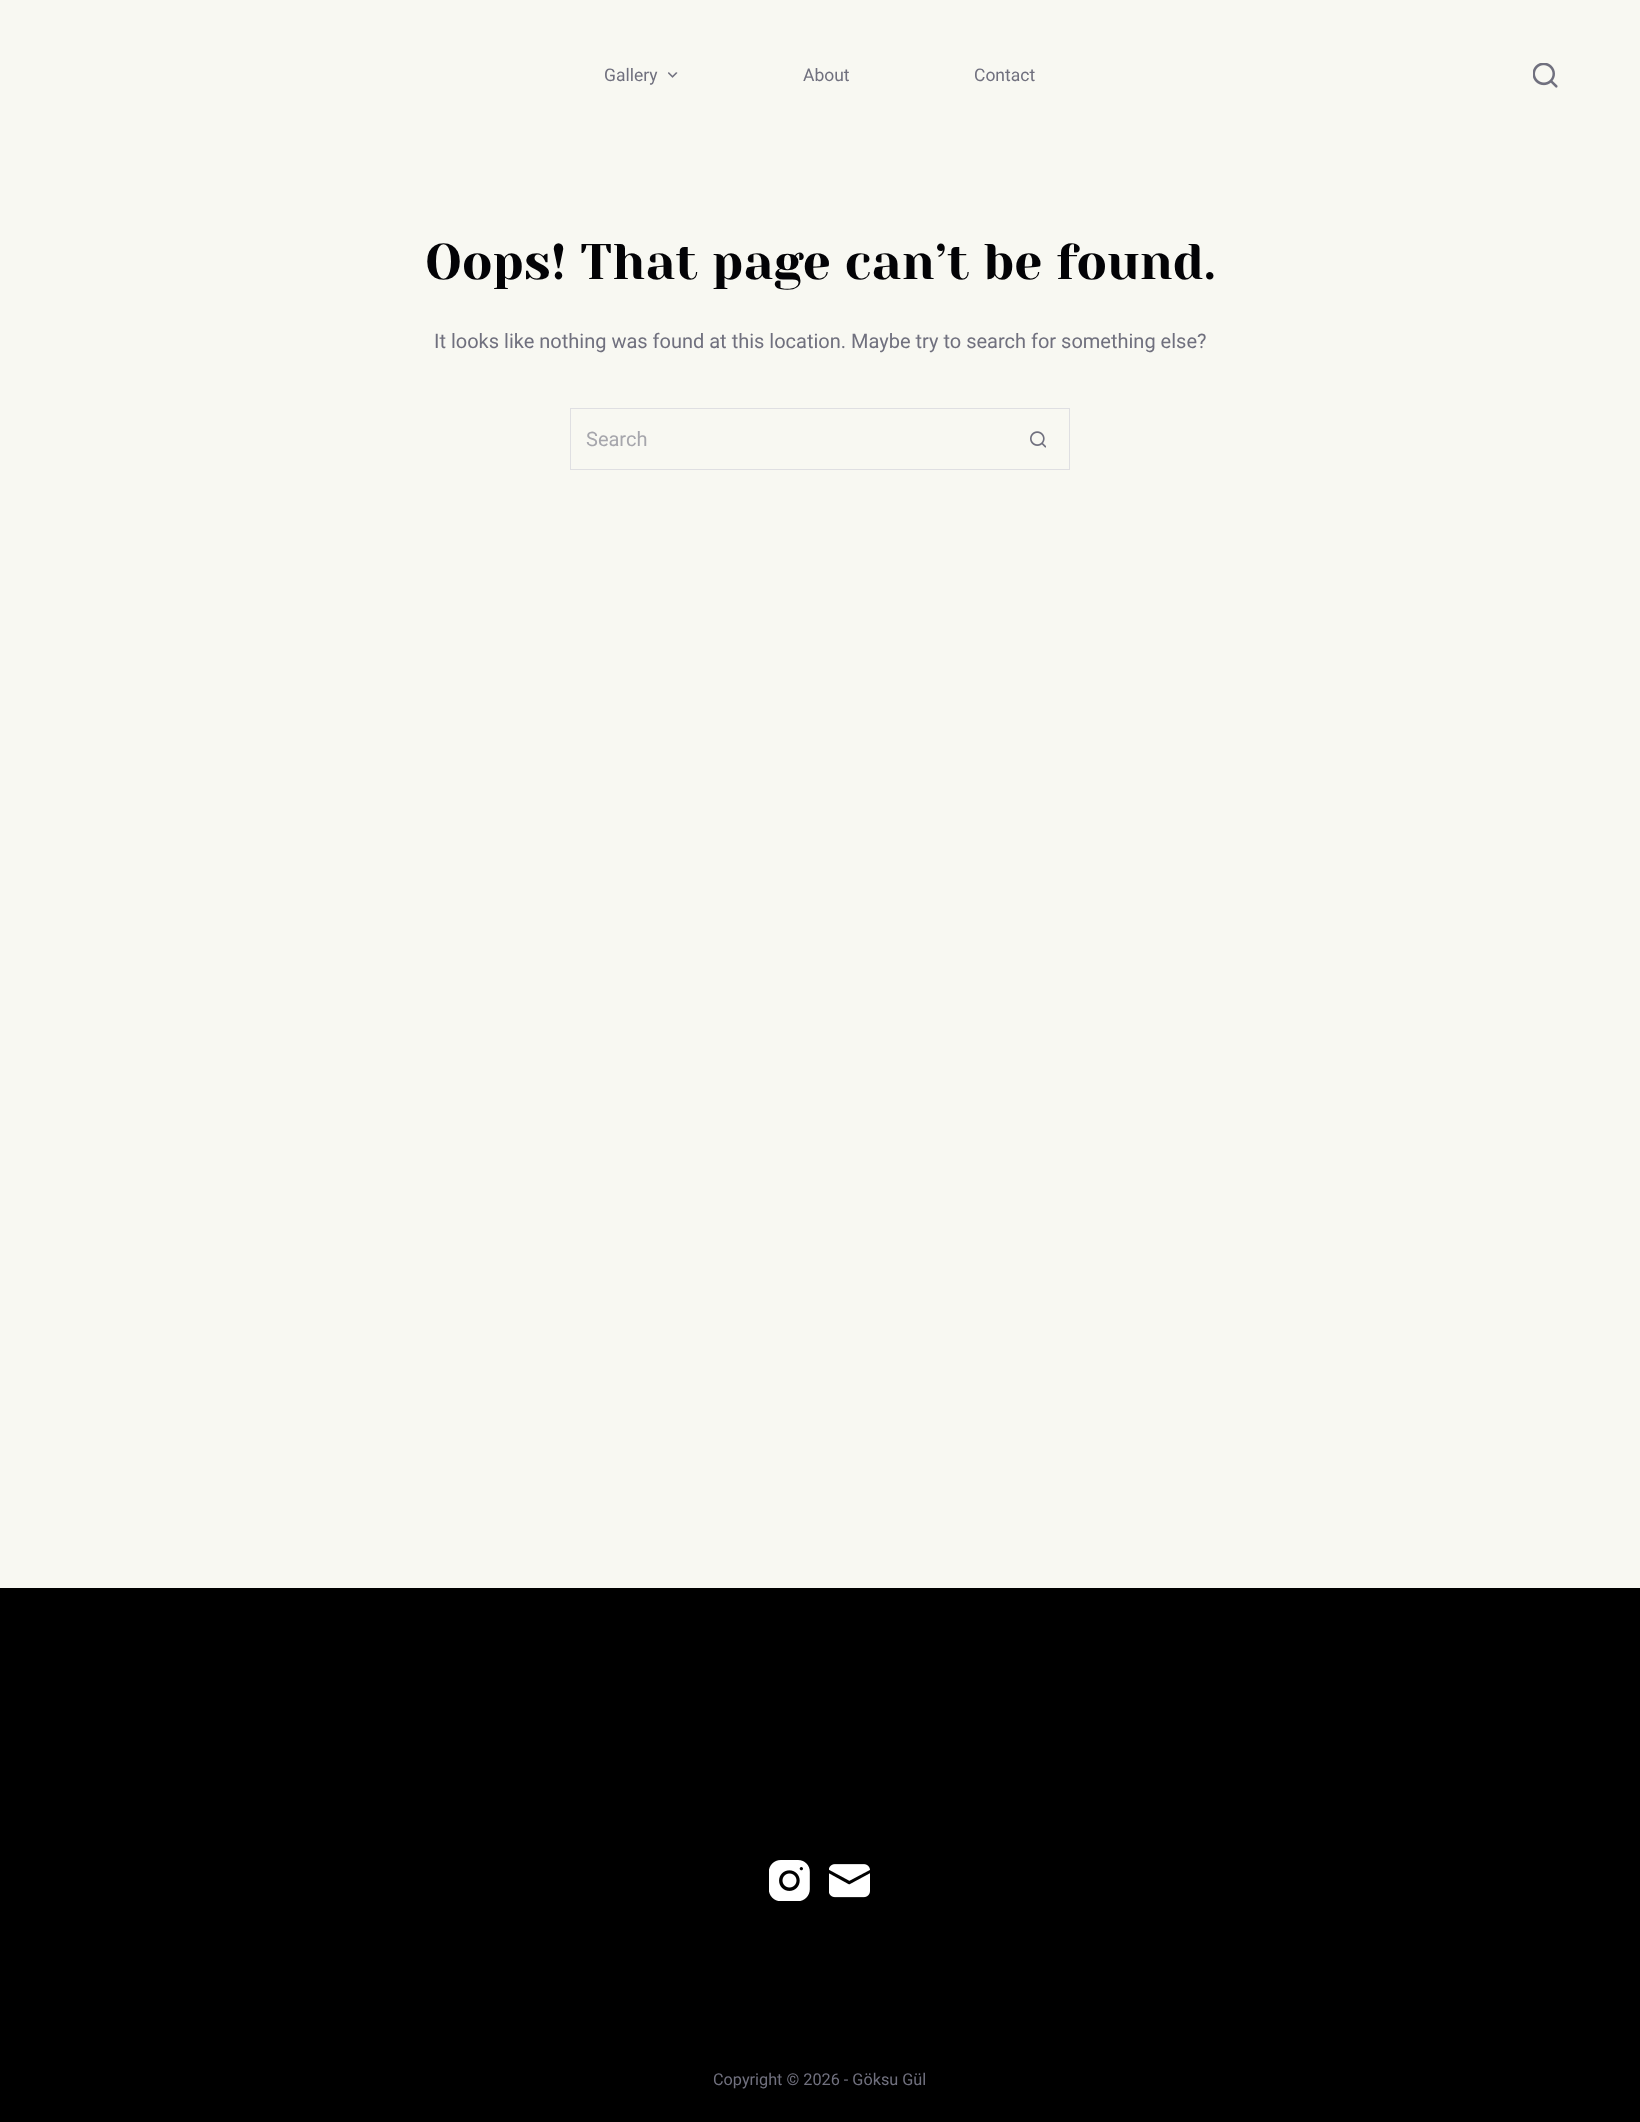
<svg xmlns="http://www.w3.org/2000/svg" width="1640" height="2122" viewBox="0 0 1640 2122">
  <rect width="100%" height="100%" fill="#f8f8f2"/>
  <image x="668" y="72" width="10" height="6" href="img/1.png"/>
  <image x="1533" y="63" width="25" height="25" href="img/2.png"/>
  <path d="M570 408h500v1H570z" fill="#dfdfe2"/>
  <path d="M570 469h438v1H570z" fill="#dfdfe2"/>
  <path d="M570 408h1v62H570z" fill="#dfdfe2"/>
  <path d="M1069 408h1v62H1069z" fill="#dfdfe2"/>
  <path d="M1008 469h62v1H1008z" fill="#dfdfe2"/>
  <image x="1030" y="431" width="16" height="17" href="img/3.png"/>
  <path d="M0 1588h1640v534H0z" fill="#000"/>
  <image x="769" y="1860" width="41" height="41" href="img/4.png"/>
  <image x="829" y="1864" width="41" height="34" href="img/5.png"/>
  <g font-family="Roboto" font-size="17.5" fill="#70707e">
    <text x="604" y="81">Gallery</text>
    <text x="803" y="81">About</text>
    <text x="974" y="81">Contact</text>
  </g>
  <text x="425" y="279" font-family="Yeseva One" font-size="50" fill="#030306">Oops! That page can’t be found.</text>
  <text x="434" y="348" font-family="Roboto" font-size="20" fill="#70707e">It looks like nothing was found at this location. Maybe try to search for something else?</text>
  <text x="586" y="446" font-family="Roboto" font-size="20" fill="#a6a6ac">Search</text>
  <text x="713" y="2085" font-family="Roboto" font-size="16.25" fill="#70707e">Copyright © 2026 - Göksu Gül</text>
</svg>
